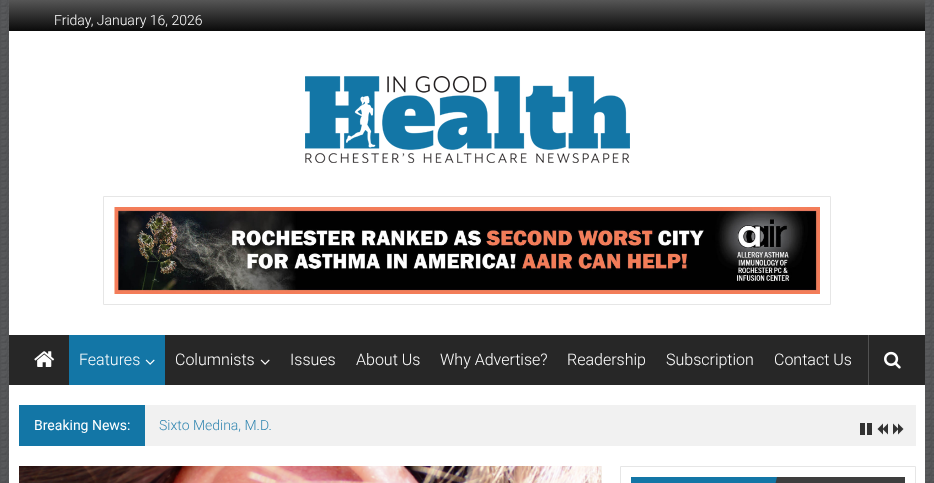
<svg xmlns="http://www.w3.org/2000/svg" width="934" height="483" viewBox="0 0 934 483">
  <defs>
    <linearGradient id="g1" gradientUnits="userSpaceOnUse" x1="467" y1="0" x2="467" y2="31"><stop offset="0" stop-color="#565656"/><stop offset="1" stop-color="#0a0a0a"/></linearGradient>
    <clipPath id="clip1"><path d="M631 477h274v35H631z"/></clipPath>
  </defs>
  <rect width="100%" height="100%" fill="#fff"/>
  <image x="0" y="0" width="934" height="483" href="img/1.png"/>
  <path d="M9 31h916v452H9z" fill="#fff"/>
  <path d="M9 0h916v31H9z" fill="url(#g1)"/>
  <image x="305" y="76" width="325" height="87" href="img/2.png"/>
  <path d="M103.5 196.5h727v108H103.5z" fill="none" stroke="#e6e6e6"/>
  <image x="114" y="207" width="706" height="87" href="img/3.png"/>
  <path d="M9 335h916v50H9z" fill="#272727"/>
  <image x="34" y="351" width="21" height="16" href="img/4.png"/>
  <path d="M69 335h96v50H69z" fill="#1376a6"/>
  <image x="145" y="359" width="10" height="6" href="img/5.png"/>
  <image x="260" y="359" width="10" height="6" href="img/6.png"/>
  <path d="M868 335h1v50H868z" fill="#525252"/>
  <image x="884" y="351" width="17" height="18" href="img/7.png"/>
  <path d="M145 405h771v41H145z" fill="#f1f1f1"/>
  <path d="M19 405h126v41H19z" fill="#1376a6"/>
  <image x="860" y="423" width="12" height="12" href="img/8.png"/>
  <image x="877" y="423" width="11" height="12" href="img/9.png"/>
  <image x="893" y="423" width="11" height="12" href="img/10.png"/>
  <image x="19" y="466" width="583" height="17" href="img/11.png"/>
  <path d="M620.5 466.5h295v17H620.5z" fill="none" stroke="#e6e6e6"/>
  <path d="M775 477h130v6H775z" fill="#3e3e3e"/>
  <path d="M631 477h110v6H631z" fill="#1376a6"/>
  <g clip-path="url(#clip1)">
    <path d="M777 477L769 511L735 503L742 469Z" fill="#1376a6"/>
  </g>
  <text x="54" y="25" font-family="Roboto" font-size="14" font-weight="300" fill="#fff">Friday, January 16, 2026</text>
  <g font-family="Roboto" font-size="16" font-weight="300" fill="#fff">
    <text x="79" y="365">Features</text>
    <text x="175" y="365">Columnists</text>
    <text x="290" y="365">Issues</text>
    <text x="356" y="365">About Us</text>
    <text x="440" y="365">Why Advertise?</text>
    <text x="567" y="365">Readership</text>
    <text x="666" y="365">Subscription</text>
    <text x="774" y="365">Contact Us</text>
  </g>
  <text x="34" y="430" font-family="Roboto" font-size="14" fill="#fff">Breaking News:</text>
  <text x="159" y="430" font-family="Roboto" font-size="14" font-weight="300" fill="#3387b1">Sixto Medina, M.D.</text>
</svg>
